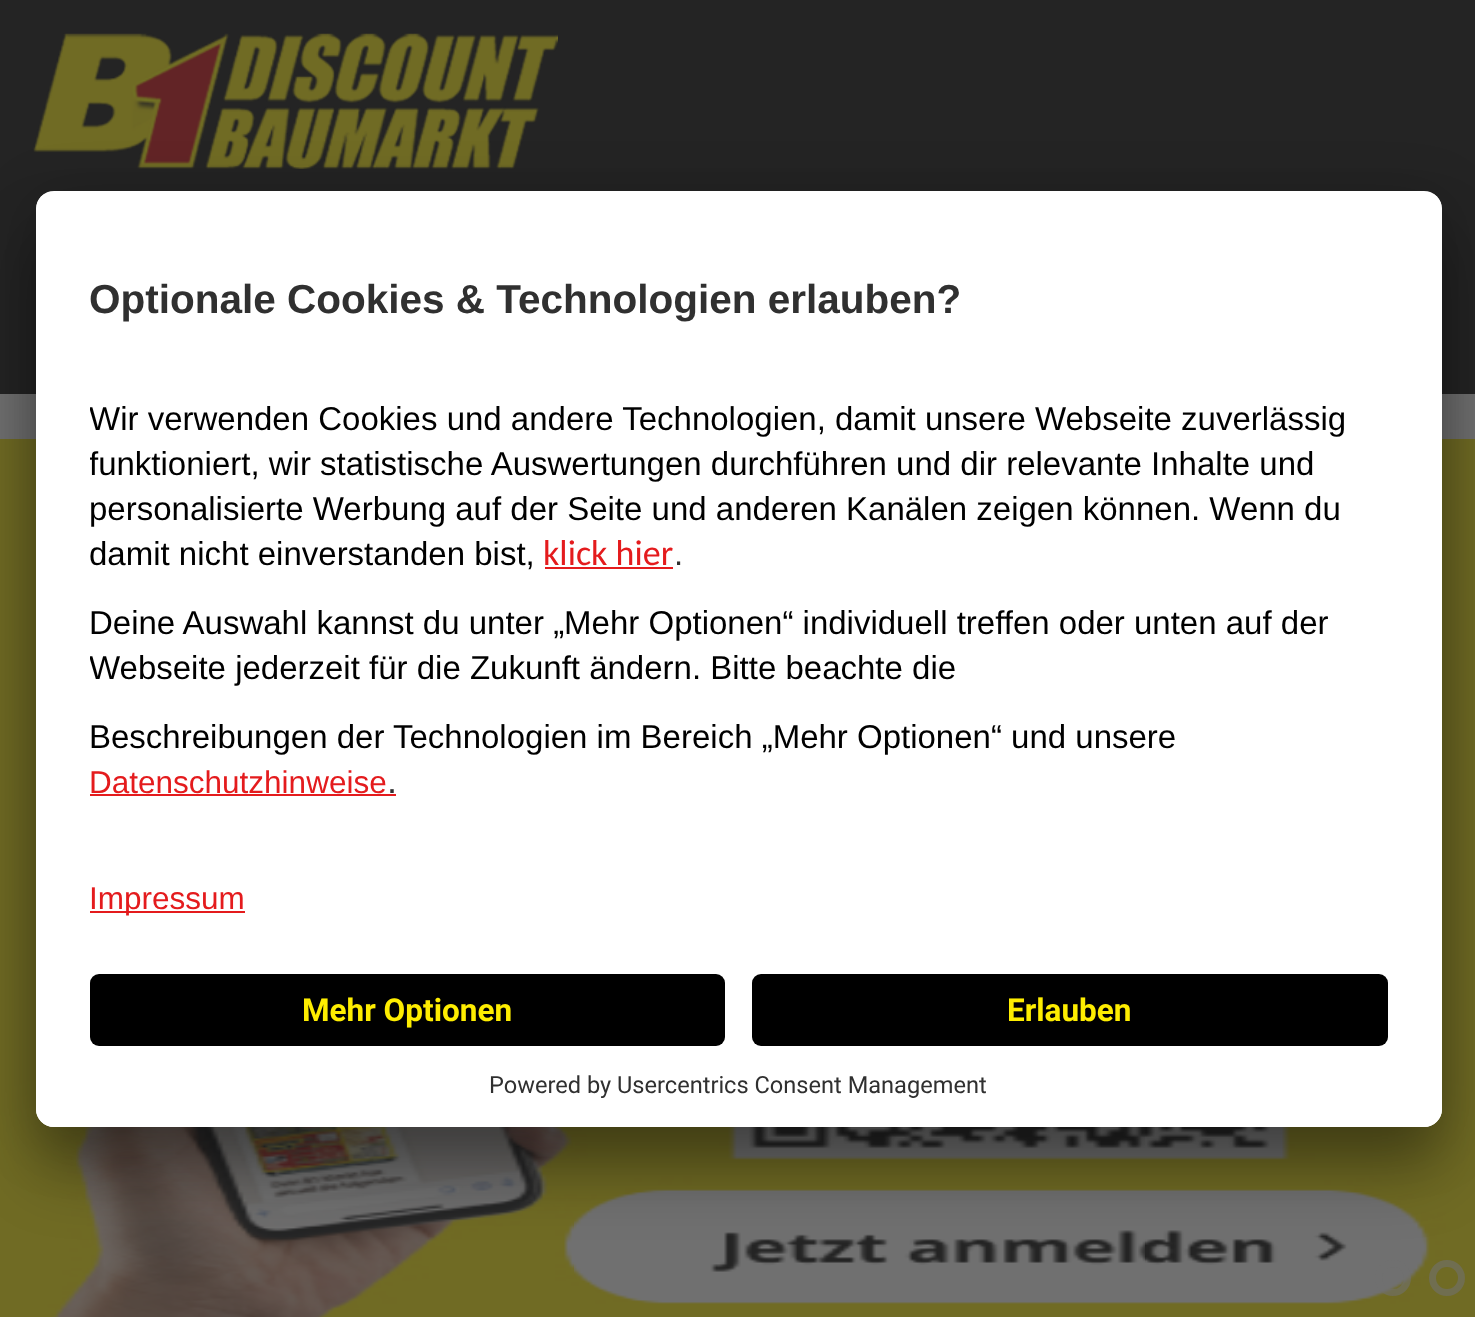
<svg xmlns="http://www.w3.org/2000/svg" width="1475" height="1317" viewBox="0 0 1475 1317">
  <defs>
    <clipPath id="clip1"><rect x="36" y="191" width="1406" height="936" rx="18"/></clipPath>
    <clipPath id="clip2"><path d="M54 191H1424C1434 191 1442 199 1442 209V956H36V209C36 199 44 191 54 191Z"/></clipPath>
    <clipPath id="clip3"><path d="M90 266h1298v663H90z"/></clipPath>
  </defs>
  <rect width="100%" height="100%" fill="#707070"/>
  <path d="M0 0h1475v394H0z" fill="#242424"/>
  <image x="33" y="33" width="525" height="136" href="img/1.png"/>
  <image x="0" y="439" width="1475" height="878" href="img/2.png"/>
  <circle cx="1393" cy="1278" r="14.5" fill="none" stroke="#70707094" stroke-width="7"/>
  <circle cx="1447" cy="1278" r="14.5" fill="none" stroke="#706e50" stroke-width="7"/>
  <rect x="36" y="236" width="1406" height="936" rx="18" fill="#0000004d" filter="blur(31.5px)"/>
  <rect x="36" y="203" width="1406" height="936" rx="18" fill="#00000038" filter="blur(29px)"/>
  <rect x="36" y="191" width="1406" height="936" rx="18" fill="#fff"/>
  <g clip-path="url(#clip1)">
    <g clip-path="url(#clip2)">
      <path d="M36 194h1406v762H36z" fill="#fff"/>
    </g>
  </g>
  <path d="M545 567h128v2H545z" fill="#e41b1d"/>
  <path d="M90 794h306v2H90z" fill="#e41b1d"/>
  <path d="M90 911h155v2H90z" fill="#e41b1d"/>
  <path d="M36 956H1442V1109C1442 1119 1434 1127 1424 1127H54C44 1127 36 1119 36 1109Z" fill="#fff"/>
  <rect x="90" y="974" width="635" height="72" rx="9" fill="#000"/>
  <rect x="752" y="974" width="636" height="72" rx="9" fill="#000"/>
  <text x="89" y="313" font-family="Liberation Sans" font-size="40.5" font-weight="bold" fill="#303030">Optionale Cookies &amp; Technologien erlauben?</text>
  <g clip-path="url(#clip3)">
    <g font-family="Liberation Sans" font-size="33" fill="#000">
      <text x="89" y="430">Wir verwenden Cookies und andere Technologien, damit unsere Webseite zuverlässig</text>
      <text x="89" y="475">funktioniert, wir statistische Auswertungen durchführen und dir relevante Inhalte und</text>
    </g>
  </g>
  <g font-family="Liberation Sans" font-size="33" fill="#000">
    <text x="89" y="520">personalisierte Werbung auf der Seite und anderen Kanälen zeigen können. Wenn du</text>
    <text x="89" y="565">damit nicht einverstanden bist,</text>
  </g>
  <text x="543" y="565" font-family="Carlito" font-size="36" fill="#e41b1d">klick hier</text>
  <text x="674" y="565" font-family="Liberation Sans" font-size="33" fill="#303030">.</text>
  <text x="89" y="634" font-family="Liberation Sans" font-size="33" fill="#000">Deine Auswahl kannst du unter „Mehr Optionen“ individuell treffen oder unten auf der</text>
  <g clip-path="url(#clip3)">
    <text x="89" y="679" font-family="Liberation Sans" font-size="33" fill="#000">Webseite jederzeit für die Zukunft ändern. Bitte beachte die</text>
  </g>
  <text x="89" y="748" font-family="Liberation Sans" font-size="33" fill="#000">Beschreibungen der Technologien im Bereich „Mehr Optionen“ und unsere</text>
  <text x="89" y="793" font-family="Liberation Sans" font-size="31.5" fill="#e41b1d">Datenschutzhinweise</text>
  <text x="387" y="793" font-family="Liberation Sans" font-size="36" fill="#303030">.</text>
  <text x="89" y="909" font-family="Liberation Sans" font-size="31.5" fill="#e41b1d">Impressum</text>
  <g font-family="Roboto" font-size="31.5" font-weight="bold" fill="#feed00">
    <text x="302" y="1021">Mehr Optionen</text>
    <text x="1007" y="1021">Erlauben</text>
  </g>
  <text x="489" y="1093" font-family="Roboto" font-size="23.6" fill="#303030">Powered by Usercentrics Consent Management</text>
</svg>
